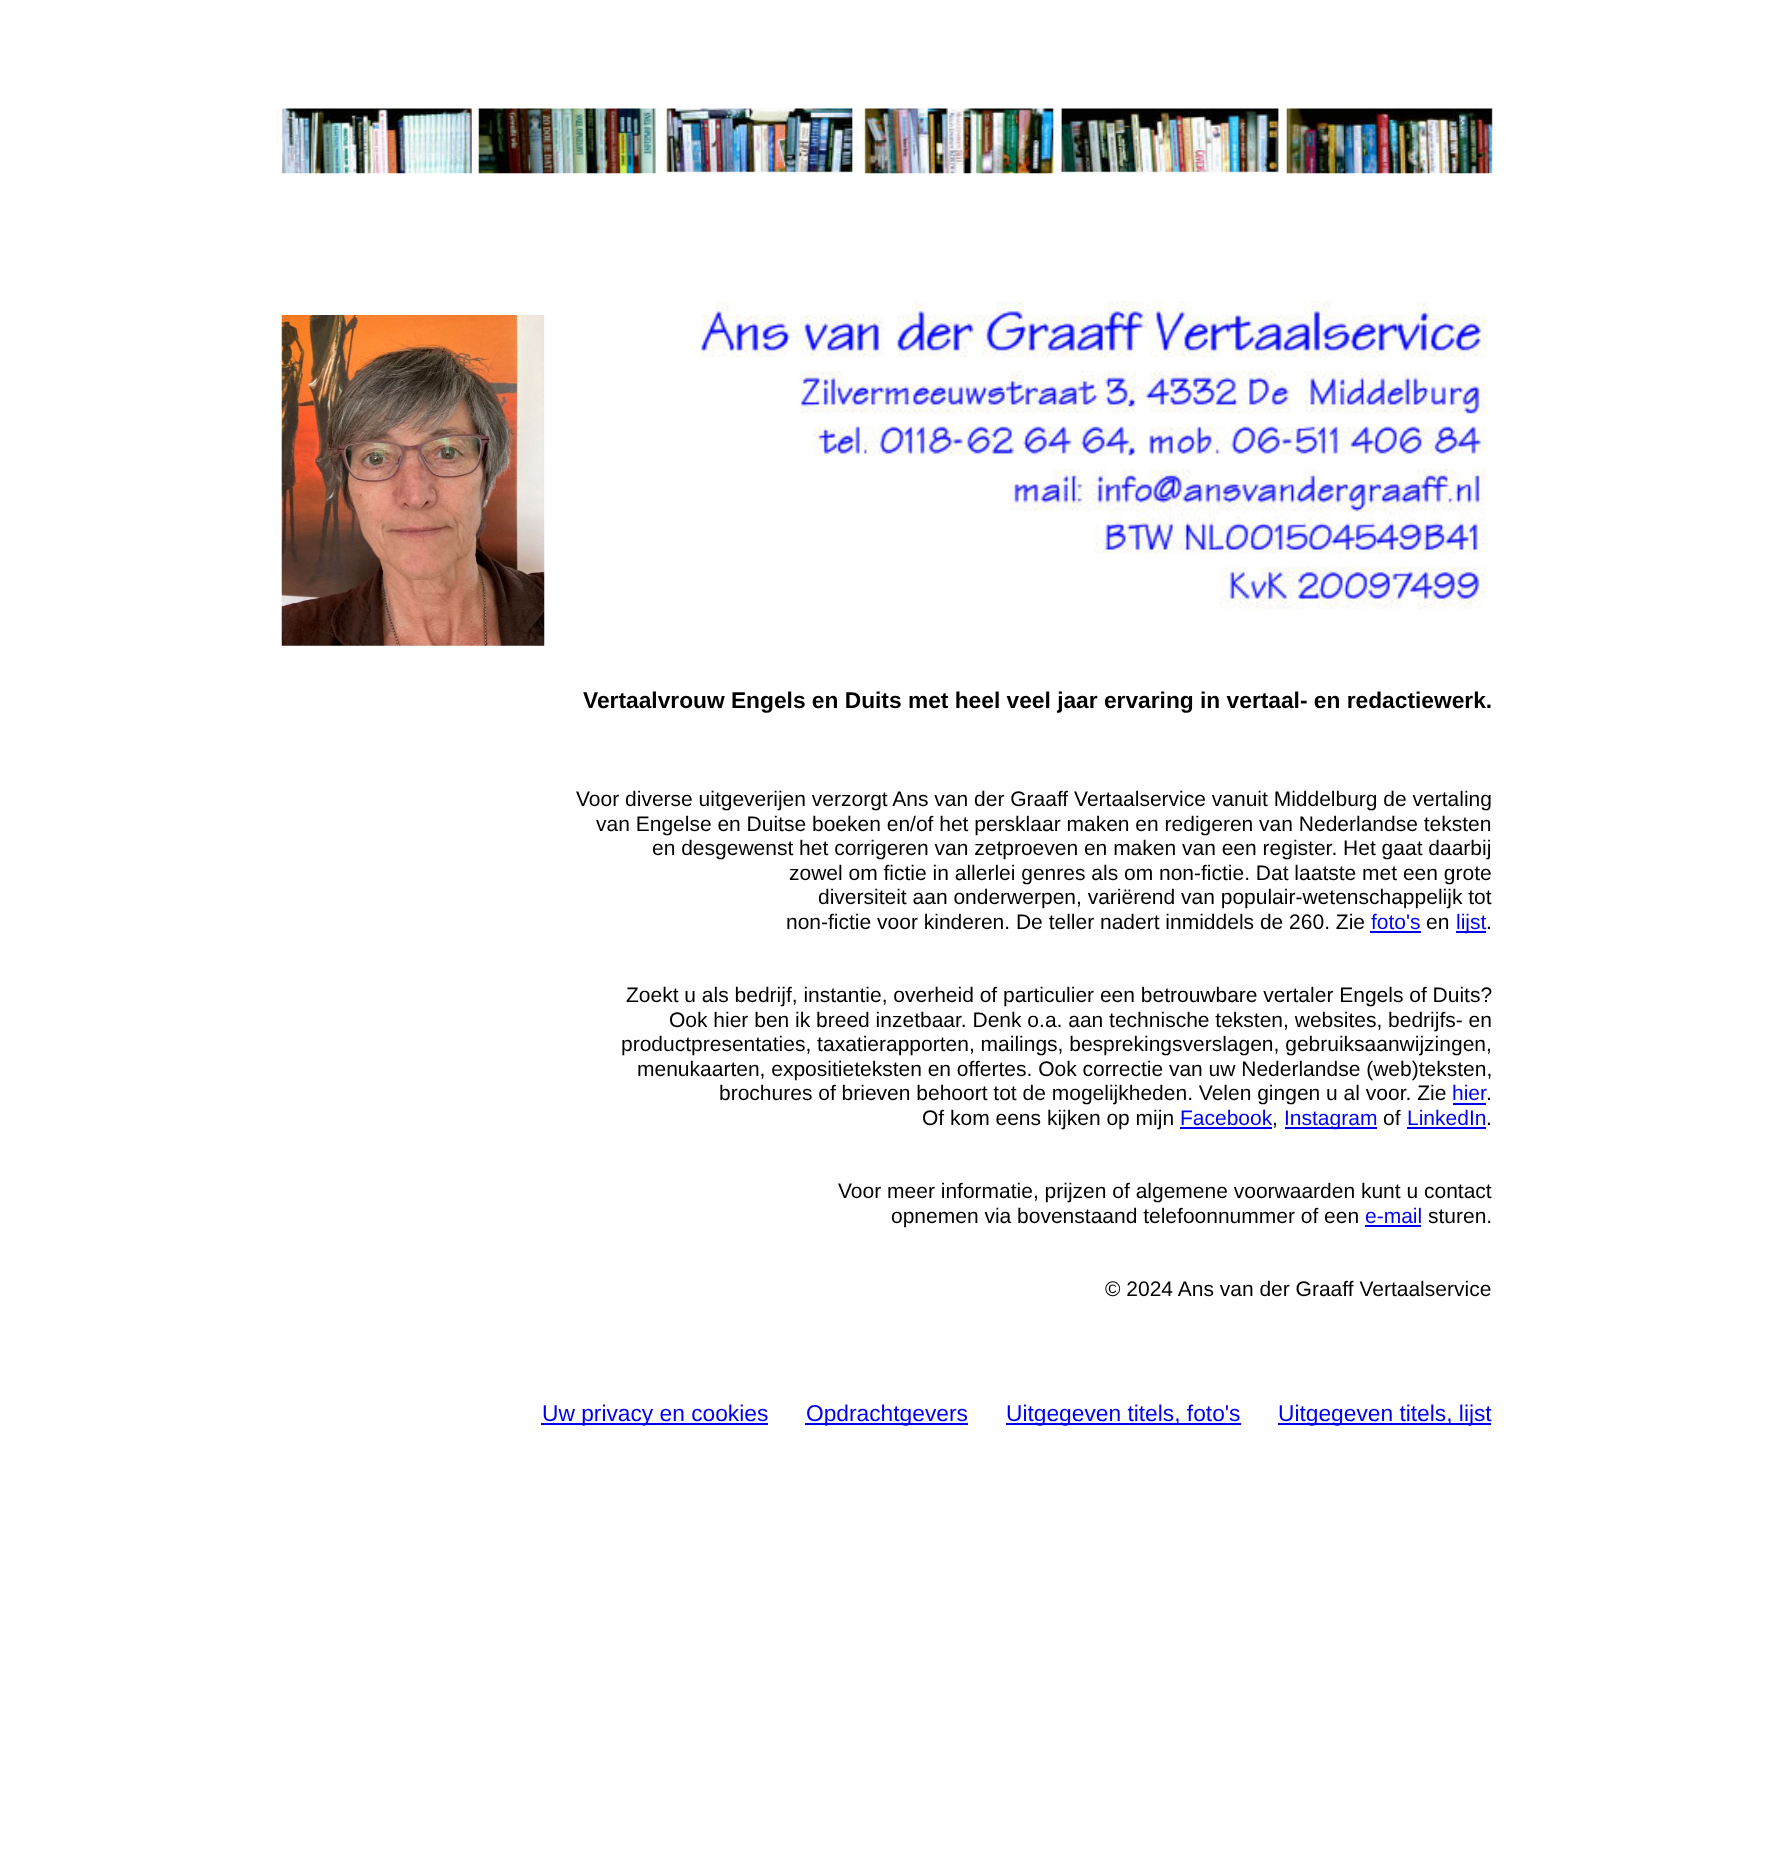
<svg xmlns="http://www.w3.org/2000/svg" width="1772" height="1874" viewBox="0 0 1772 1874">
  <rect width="100%" height="100%" fill="#fff"/>
  <image x="276" y="108" width="1220" height="66" href="img/1.png"/>
  <image x="281" y="315" width="264" height="331" href="img/2.png"/>
  <image x="701" y="301" width="785" height="309" href="img/3.png"/>
  <path d="M1370 931h51v2H1370z" fill="#00e"/>
  <path d="M1456 931h30v2H1456z" fill="#00e"/>
  <path d="M1453 1103h33v2H1453z" fill="#00e"/>
  <path d="M1180 1127h92v2H1180z" fill="#00e"/>
  <path d="M1285 1127h92v2H1285z" fill="#00e"/>
  <path d="M1407 1127h79v2H1407z" fill="#00e"/>
  <path d="M1365 1225h56v2H1365z" fill="#00e"/>
  <path d="M541 1423h227v2H541z" fill="#00e"/>
  <path d="M805 1423h163v2H805z" fill="#00e"/>
  <path d="M1006 1423h235v2H1006z" fill="#00e"/>
  <path d="M1278 1423h213v2H1278z" fill="#00e"/>
  <text x="583" y="708" font-family="Liberation Sans" font-size="22.75" font-weight="bold" fill="#000">Vertaalvrouw Engels en Duits met heel veel jaar ervaring in vertaal- en redactiewerk.</text>
  <g font-family="Liberation Sans" font-size="21" fill="#000">
    <text x="576" y="806">Voor diverse uitgeverijen verzorgt Ans van der Graaff Vertaalservice vanuit Middelburg de vertaling</text>
    <text x="596" y="831">van Engelse en Duitse boeken en/of het persklaar maken en redigeren van Nederlandse teksten</text>
    <text x="652" y="855">en desgewenst het corrigeren van zetproeven en maken van een register. Het gaat daarbij</text>
    <text x="789" y="880">zowel om fictie in allerlei genres als om non-fictie. Dat laatste met een grote</text>
    <text x="818" y="904">diversiteit aan onderwerpen, variërend van populair-wetenschappelijk tot</text>
    <text x="786" y="929">non-fictie voor kinderen. De teller nadert inmiddels de 260. Zie</text>
  </g>
  <text x="1371" y="929" font-family="Liberation Sans" font-size="21" fill="#00e">foto's</text>
  <text x="1426" y="929" font-family="Liberation Sans" font-size="21" fill="#000">en</text>
  <text x="1456" y="929" font-family="Liberation Sans" font-size="21" fill="#00e">lijst</text>
  <g font-family="Liberation Sans" font-size="21" fill="#000">
    <text x="1486" y="929">.</text>
    <text x="626" y="1002">Zoekt u als bedrijf, instantie, overheid of particulier een betrouwbare vertaler Engels of Duits?</text>
    <text x="669" y="1027">Ook hier ben ik breed inzetbaar. Denk o.a. aan technische teksten, websites, bedrijfs- en</text>
    <text x="621" y="1051">productpresentaties, taxatierapporten, mailings, besprekingsverslagen, gebruiksaanwijzingen,</text>
    <text x="637" y="1076">menukaarten, expositieteksten en offertes. Ook correctie van uw Nederlandse (web)teksten,</text>
    <text x="719" y="1100">brochures of brieven behoort tot de mogelijkheden. Velen gingen u al voor. Zie</text>
  </g>
  <text x="1452" y="1100" font-family="Liberation Sans" font-size="21" fill="#00e">hier</text>
  <g font-family="Liberation Sans" font-size="21" fill="#000">
    <text x="1486" y="1100">.</text>
    <text x="922" y="1125">Of kom eens kijken op mijn</text>
  </g>
  <text x="1180" y="1125" font-family="Liberation Sans" font-size="21" fill="#00e">Facebook</text>
  <text x="1272" y="1125" font-family="Liberation Sans" font-size="21" fill="#000">,</text>
  <text x="1284" y="1125" font-family="Liberation Sans" font-size="21" fill="#00e">Instagram</text>
  <text x="1383" y="1125" font-family="Liberation Sans" font-size="21" fill="#000">of</text>
  <text x="1407" y="1125" font-family="Liberation Sans" font-size="21" fill="#00e">LinkedIn</text>
  <g font-family="Liberation Sans" font-size="21" fill="#000">
    <text x="1486" y="1125">.</text>
    <text x="838" y="1198">Voor meer informatie, prijzen of algemene voorwaarden kunt u contact</text>
    <text x="891" y="1223">opnemen via bovenstaand telefoonnummer of een</text>
  </g>
  <text x="1365" y="1223" font-family="Liberation Sans" font-size="21" fill="#00e">e-mail</text>
  <g font-family="Liberation Sans" font-size="21" fill="#000">
    <text x="1428" y="1223">sturen.</text>
    <text x="1105" y="1296">© 2024 Ans van der Graaff Vertaalservice</text>
  </g>
  <g font-family="Liberation Sans" font-size="22.75" fill="#00e">
    <text x="542" y="1421">Uw privacy en cookies</text>
    <text x="806" y="1421">Opdrachtgevers</text>
    <text x="1006" y="1421">Uitgegeven titels, foto's</text>
    <text x="1278" y="1421">Uitgegeven titels, lijst</text>
  </g>
</svg>
